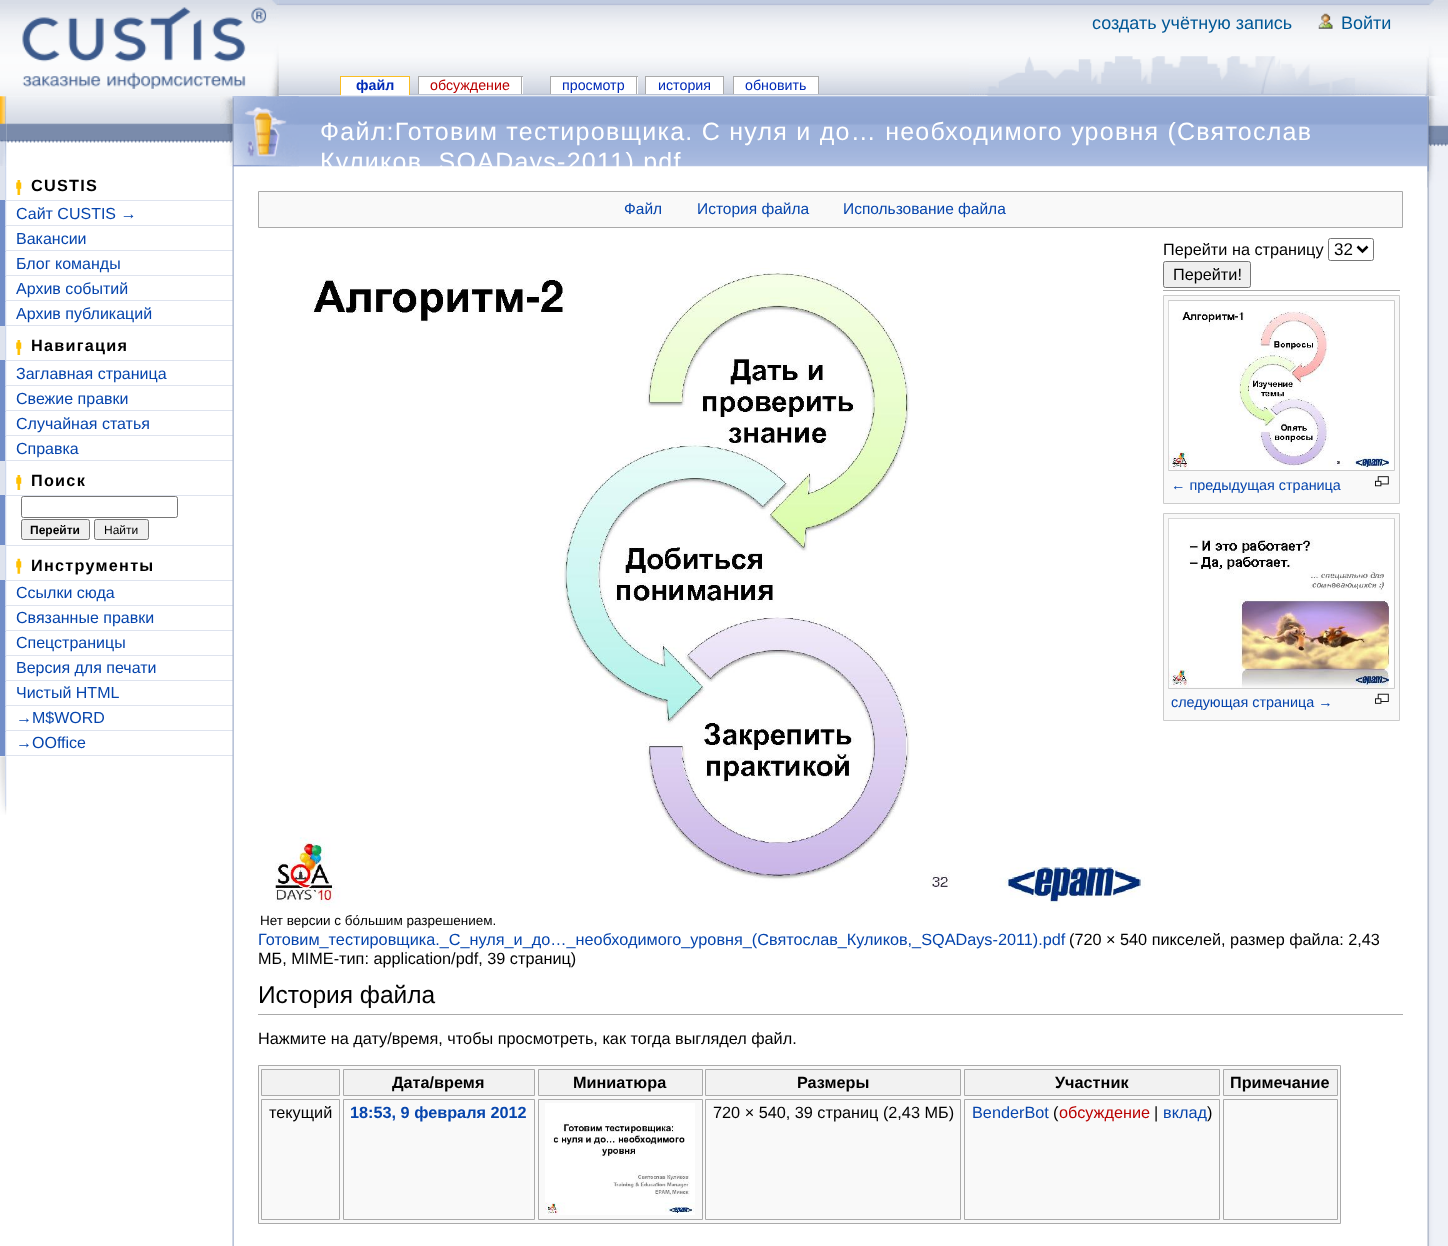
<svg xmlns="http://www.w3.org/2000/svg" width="1448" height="1246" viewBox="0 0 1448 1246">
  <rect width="100%" height="100%" fill="#fff"/>
  <image x="0" y="0" width="1448" height="97" href="img/1.png"/>
  <image x="0" y="0" width="279" height="96" href="img/2.png"/>
  <image x="22" y="7" width="245" height="82" href="img/3.png"/>
  <path d="M233 96h1195v1H233z" fill="#fff"/>
  <image x="6" y="96" width="227" height="47" href="img/9.png"/>
  <path d="M0 200h6v1H0z" fill="#728ec9"/>
  <image x="5" y="200" width="2" height="2" href="img/13.png"/>
  <path d="M6 200h227v1H6z" fill="#dee3ee"/>
  <path d="M0 201h6v25H0z" fill="#728ec9"/>
  <image x="5" y="225" width="2" height="2" href="img/13.png"/>
  <path d="M6 225h227v1H6z" fill="#dee3ee"/>
  <path d="M0 226h6v25H0z" fill="#728ec9"/>
  <image x="5" y="250" width="2" height="2" href="img/13.png"/>
  <path d="M6 250h227v1H6z" fill="#dee3ee"/>
  <path d="M0 251h6v25H0z" fill="#728ec9"/>
  <image x="5" y="275" width="2" height="2" href="img/13.png"/>
  <path d="M6 275h227v1H6z" fill="#dee3ee"/>
  <path d="M0 276h6v25H0z" fill="#728ec9"/>
  <image x="5" y="300" width="2" height="2" href="img/13.png"/>
  <path d="M6 300h227v1H6z" fill="#dee3ee"/>
  <path d="M0 301h6v25H0z" fill="#728ec9"/>
  <image x="5" y="325" width="2" height="2" href="img/13.png"/>
  <path d="M6 325h227v1H6z" fill="#dee3ee"/>
  <path d="M0 360h6v1H0z" fill="#728ec9"/>
  <image x="5" y="360" width="2" height="2" href="img/13.png"/>
  <path d="M6 360h227v1H6z" fill="#dee3ee"/>
  <path d="M0 361h6v25H0z" fill="#728ec9"/>
  <image x="5" y="385" width="2" height="2" href="img/13.png"/>
  <path d="M6 385h227v1H6z" fill="#dee3ee"/>
  <path d="M0 386h6v25H0z" fill="#728ec9"/>
  <image x="5" y="410" width="2" height="2" href="img/13.png"/>
  <path d="M6 410h227v1H6z" fill="#dee3ee"/>
  <path d="M0 411h6v25H0z" fill="#728ec9"/>
  <image x="5" y="435" width="2" height="2" href="img/13.png"/>
  <path d="M6 435h227v1H6z" fill="#dee3ee"/>
  <path d="M0 436h6v25H0z" fill="#728ec9"/>
  <image x="5" y="460" width="2" height="2" href="img/13.png"/>
  <path d="M6 460h227v1H6z" fill="#dee3ee"/>
  <path d="M0 495h6v1H0z" fill="#728ec9"/>
  <image x="5" y="495" width="2" height="2" href="img/13.png"/>
  <path d="M6 495h227v1H6z" fill="#dee3ee"/>
  <path d="M0 545h6v1H0z" fill="#dee3ee"/>
  <image x="5" y="545" width="2" height="2" href="img/13.png"/>
  <path d="M6 545h227v1H6z" fill="#dee3ee"/>
  <path d="M0 580h6v1H0z" fill="#728ec9"/>
  <image x="5" y="580" width="2" height="2" href="img/13.png"/>
  <path d="M6 580h227v1H6z" fill="#dee3ee"/>
  <path d="M0 581h6v25H0z" fill="#728ec9"/>
  <image x="5" y="605" width="2" height="2" href="img/13.png"/>
  <path d="M6 605h227v1H6z" fill="#dee3ee"/>
  <path d="M0 606h6v25H0z" fill="#728ec9"/>
  <image x="5" y="630" width="2" height="2" href="img/13.png"/>
  <path d="M6 630h227v1H6z" fill="#dee3ee"/>
  <path d="M0 631h6v25H0z" fill="#728ec9"/>
  <image x="5" y="655" width="2" height="2" href="img/13.png"/>
  <path d="M6 655h227v1H6z" fill="#dee3ee"/>
  <path d="M0 656h6v25H0z" fill="#728ec9"/>
  <image x="5" y="680" width="2" height="2" href="img/13.png"/>
  <path d="M6 680h227v1H6z" fill="#dee3ee"/>
  <path d="M0 681h6v25H0z" fill="#728ec9"/>
  <image x="5" y="705" width="2" height="2" href="img/13.png"/>
  <path d="M6 705h227v1H6z" fill="#dee3ee"/>
  <path d="M0 706h6v25H0z" fill="#728ec9"/>
  <image x="5" y="730" width="2" height="2" href="img/13.png"/>
  <path d="M6 730h227v1H6z" fill="#dee3ee"/>
  <path d="M0 731h6v25H0z" fill="#728ec9"/>
  <image x="5" y="755" width="2" height="2" href="img/13.png"/>
  <path d="M6 755h227v1H6z" fill="#dee3ee"/>
  <image x="232" y="96" width="2" height="1150" href="img/19.png"/>
  <image x="232" y="96" width="1196" height="71" href="img/20.png"/>
  <image x="232" y="96" width="67" height="71" href="img/21.png"/>
  <image x="266" y="0" width="13" height="97" href="img/4.png"/>
  <image x="1318" y="13" width="15" height="16" href="img/5.png"/>
  <image x="969" y="56" width="459" height="40" href="img/7.png"/>
  <image x="1427" y="96" width="21" height="1124" href="img/28.png"/>
  <image x="1427" y="0" width="21" height="97" href="img/6.png"/>
  <path d="M341 77h68v18H341z" fill="#fff"/>
  <path d="M340 76h70v1H340z" fill="#fabd23"/>
  <path d="M409 76h1v19H409z" fill="#fabd23"/>
  <path d="M340 76h1v19H340z" fill="#fabd23"/>
  <path d="M419 77h104v17H419z" fill="#fff"/>
  <path d="M418 76h105v1H418z" fill="#aaa"/>
  <path d="M521 76h1v18H521z" fill="#aaa"/>
  <path d="M418 76h1v18H418z" fill="#aaa"/>
  <path d="M551 77h87v17H551z" fill="#fff"/>
  <path d="M550 76h88v1H550z" fill="#aaa"/>
  <path d="M636 76h1v18H636z" fill="#aaa"/>
  <path d="M550 76h1v18H550z" fill="#aaa"/>
  <path d="M646 77h77v17H646z" fill="#fff"/>
  <path d="M645 76h79v1H645z" fill="#aaa"/>
  <path d="M723 76h1v18H723z" fill="#aaa"/>
  <path d="M645 76h1v18H645z" fill="#aaa"/>
  <path d="M734 77h84v17H734z" fill="#fff"/>
  <path d="M733 76h86v1H733z" fill="#aaa"/>
  <path d="M818 76h1v18H818z" fill="#aaa"/>
  <path d="M733 76h1v18H733z" fill="#aaa"/>
  <image x="0" y="96" width="7" height="70" href="img/8.png"/>
  <image x="220" y="96" width="13" height="71" href="img/10.png"/>
  <path d="M0 166h6v34H0z" fill="#dee3ee"/>
  <image x="5" y="166" width="2" height="34" href="img/11.png"/>
  <image x="16" y="180" width="6" height="15" href="img/12.png"/>
  <image x="5" y="201" width="2" height="24" href="img/14.png"/>
  <image x="5" y="226" width="2" height="24" href="img/14.png"/>
  <image x="5" y="251" width="2" height="24" href="img/14.png"/>
  <image x="5" y="276" width="2" height="24" href="img/14.png"/>
  <image x="5" y="301" width="2" height="24" href="img/14.png"/>
  <path d="M0 326h6v34H0z" fill="#dee3ee"/>
  <image x="5" y="326" width="2" height="34" href="img/15.png"/>
  <image x="16" y="340" width="6" height="15" href="img/12.png"/>
  <image x="5" y="361" width="2" height="24" href="img/14.png"/>
  <image x="5" y="386" width="2" height="24" href="img/14.png"/>
  <image x="5" y="411" width="2" height="24" href="img/14.png"/>
  <image x="5" y="436" width="2" height="24" href="img/14.png"/>
  <path d="M0 461h6v34H0z" fill="#dee3ee"/>
  <image x="5" y="461" width="2" height="34" href="img/15.png"/>
  <image x="16" y="475" width="6" height="15" href="img/12.png"/>
  <path d="M0 496h6v49H0z" fill="#728ec9"/>
  <image x="5" y="496" width="2" height="49" href="img/16.png"/>
  <rect x="21.5" y="496.5" width="156" height="21" rx="2" fill="none" stroke="#767676"/>
  <rect x="21.5" y="519.5" width="68" height="20" rx="2" fill="#efefef" stroke="#767676"/>
  <rect x="94.5" y="519.5" width="54" height="20" rx="2" fill="#efefef" stroke="#767676"/>
  <path d="M0 546h6v34H0z" fill="#dee3ee"/>
  <image x="5" y="546" width="2" height="34" href="img/15.png"/>
  <image x="16" y="558" width="6" height="16" href="img/17.png"/>
  <image x="5" y="581" width="2" height="24" href="img/14.png"/>
  <image x="5" y="606" width="2" height="24" href="img/14.png"/>
  <image x="5" y="631" width="2" height="24" href="img/14.png"/>
  <image x="5" y="656" width="2" height="24" href="img/14.png"/>
  <image x="5" y="681" width="2" height="24" href="img/14.png"/>
  <image x="5" y="706" width="2" height="24" href="img/14.png"/>
  <image x="5" y="731" width="2" height="24" href="img/14.png"/>
  <image x="0" y="756" width="7" height="59" href="img/18.png"/>
  <path d="M258.5 191.5h1144v36H258.5z" fill="#f9f9f9" stroke="#aaa"/>
  <rect x="1328.5" y="238.5" width="45" height="22" rx="2" fill="none" stroke="#767676"/>
  <path d="M1357.5 246.5L1362.5 251.5L1367.5 246.5" fill="none" stroke="#000" stroke-width="2.5"/>
  <rect x="1163.5" y="261.5" width="87" height="26" rx="2" fill="#efefef" stroke="#767676"/>
  <path d="M1163 290h237v1H1163z" fill="#aaa"/>
  <path d="M1163.5 295.5h236v208H1163.5z" fill="#f9f9f9" stroke="#ccc"/>
  <path d="M1168.5 300.5h226v170H1168.5z" fill="none" stroke="#ccc"/>
  <image x="1168" y="301" width="226" height="169" href="img/22.png"/>
  <image x="1375" y="476" width="14" height="11" href="img/23.png"/>
  <path d="M1163.5 513.5h236v207H1163.5z" fill="#f9f9f9" stroke="#ccc"/>
  <path d="M1168.5 518.5h226v170H1168.5z" fill="none" stroke="#ccc"/>
  <image x="1168" y="518" width="226" height="170" href="img/24.png"/>
  <image x="1375" y="693" width="14" height="11" href="img/25.png"/>
  <image x="275" y="268" width="870" height="640" href="img/26.png"/>
  <path d="M258 1014h1145v1H258z" fill="#aaa"/>
  <path d="M258.5 1065.5h1082v158H258.5z" fill="#f9f9f9" stroke="#aaa"/>
  <path d="M261.5 1069.5h78v26H261.5z" fill="#f2f2f2" stroke="#aaa"/>
  <path d="M343.5 1069.5h191v26H343.5z" fill="#f2f2f2" stroke="#aaa"/>
  <path d="M538.5 1069.5h164v26H538.5z" fill="#f2f2f2" stroke="#aaa"/>
  <path d="M705.5 1069.5h255v26H705.5z" fill="#f2f2f2" stroke="#aaa"/>
  <path d="M964.5 1069.5h255v26H964.5z" fill="#f2f2f2" stroke="#aaa"/>
  <path d="M1223.5 1069.5h114v26H1223.5z" fill="#f2f2f2" stroke="#aaa"/>
  <path d="M261.5 1099.5h78v120H261.5z" fill="none" stroke="#aaa"/>
  <path d="M343.5 1099.5h191v120H343.5z" fill="none" stroke="#aaa"/>
  <path d="M538.5 1099.5h164v120H538.5z" fill="none" stroke="#aaa"/>
  <path d="M545 1103h150v19H545z" fill="#fff"/>
  <image x="545" y="1122" width="150" height="93" href="img/27.png"/>
  <path d="M705.5 1099.5h255v120H705.5z" fill="none" stroke="#aaa"/>
  <path d="M964.5 1099.5h255v120H964.5z" fill="none" stroke="#aaa"/>
  <path d="M1223.5 1099.5h114v120H1223.5z" fill="none" stroke="#aaa"/>
  <image x="1427" y="96" width="21" height="92" href="img/29.png"/>
  <image x="1427" y="1220" width="21" height="26" href="img/30.png"/>
  <g font-family="Liberation Sans" font-size="18" fill="#005896">
    <text x="1092" y="29">создать учётную запись</text>
    <text x="1341" y="29">Войти</text>
  </g>
  <text x="356" y="90" font-family="Liberation Sans" font-size="14.25" font-weight="bold" fill="#002bb8">файл</text>
  <text x="430" y="90" font-family="Liberation Sans" font-size="14.25" fill="#ba0000">обсуждение</text>
  <g font-family="Liberation Sans" font-size="14.25" fill="#002bb8">
    <text x="562" y="90">просмотр</text>
    <text x="658" y="90">история</text>
    <text x="745" y="90">обновить</text>
  </g>
  <text x="31" y="191" font-family="Liberation Sans" font-size="16.25" font-weight="bold" letter-spacing="1.25" fill="#000">CUSTIS</text>
  <g font-family="Liberation Sans" font-size="16" fill="#0645ad">
    <text x="16" y="219">Сайт CUSTIS →</text>
    <text x="16" y="244">Вакансии</text>
    <text x="16" y="269">Блог команды</text>
    <text x="16" y="294">Архив событий</text>
    <text x="16" y="319">Архив публикаций</text>
  </g>
  <text x="31" y="351" font-family="Liberation Sans" font-size="16.25" font-weight="bold" letter-spacing="1.25" fill="#000">Навигация</text>
  <g font-family="Liberation Sans" font-size="16" fill="#0645ad">
    <text x="16" y="379">Заглавная страница</text>
    <text x="16" y="404">Свежие правки</text>
    <text x="16" y="429">Случайная статья</text>
    <text x="16" y="454">Справка</text>
  </g>
  <text x="31" y="486" font-family="Liberation Sans" font-size="16.25" font-weight="bold" letter-spacing="1.25" fill="#000">Поиск</text>
  <text x="30" y="534" font-family="Liberation Sans" font-size="12" font-weight="bold" fill="#000">Перейти</text>
  <text x="104" y="534" font-family="Liberation Sans" font-size="12" fill="#000">Найти</text>
  <text x="31" y="571" font-family="Liberation Sans" font-size="16.25" font-weight="bold" letter-spacing="1.25" fill="#000">Инструменты</text>
  <g font-family="Liberation Sans" font-size="16" fill="#0645ad">
    <text x="16" y="598">Ссылки сюда</text>
    <text x="16" y="623">Связанные правки</text>
    <text x="16" y="648">Спецстраницы</text>
    <text x="16" y="673">Версия для печати</text>
    <text x="16" y="698">Чистый HTML</text>
    <text x="16" y="723">→M$WORD</text>
    <text x="16" y="748">→OOffice</text>
  </g>
  <g font-family="Liberation Sans" font-size="25" letter-spacing="1.25" fill="#fff">
    <text x="320" y="140">Файл:Готовим тестировщика. С нуля и до… необходимого уровня (Святослав</text>
    <text x="320" y="170">Куликов, SQADays-2011).pdf</text>
  </g>
  <g font-family="Liberation Sans" font-size="15.5" fill="#0645ad">
    <text x="624" y="214">Файл</text>
    <text x="697" y="214">История файла</text>
    <text x="843" y="214">Использование файла</text>
  </g>
  <text x="1163" y="255" font-family="Liberation Sans" font-size="16.25" fill="#000">Перейти на страницу</text>
  <text x="1334" y="255" font-family="Liberation Sans" font-size="17" fill="#000">32</text>
  <text x="1173" y="280" font-family="Liberation Sans" font-size="16.25" fill="#000">Перейти!</text>
  <g font-family="Liberation Sans" font-size="14.4" fill="#0645ad">
    <text x="1171" y="490">← предыдущая страница</text>
    <text x="1171" y="707">следующая страница →</text>
  </g>
  <text x="260" y="925" font-family="Liberation Sans" font-size="13.5" fill="#000">Нет версии с бо́льшим разрешением.</text>
  <text x="258" y="945" font-family="Liberation Sans" font-size="16.25" fill="#0645ad">Готовим_тестировщика._С_нуля_и_до…_необходимого_уровня_(Святослав_Куликов,_SQADays-2011).pdf</text>
  <g font-family="Liberation Sans" font-size="16.25" fill="#000">
    <text x="1069" y="945">(720 × 540 пикселей, размер файла: 2,43</text>
    <text x="258" y="964">МБ, MIME-тип: application/pdf, 39 страниц)</text>
  </g>
  <text x="258" y="1003" font-family="Liberation Sans" font-size="24.5" fill="#000">История файла</text>
  <text x="258" y="1044" font-family="Liberation Sans" font-size="16.25" fill="#000">Нажмите на дату/время, чтобы просмотреть, как тогда выглядел файл.</text>
  <g font-family="Liberation Sans" font-size="16.25" font-weight="bold" fill="#000">
    <text x="392" y="1088">Дата/время</text>
    <text x="573" y="1088">Миниатюра</text>
    <text x="797" y="1088">Размеры</text>
    <text x="1055" y="1088">Участник</text>
    <text x="1230" y="1088">Примечание</text>
  </g>
  <text x="269" y="1118" font-family="Liberation Sans" font-size="16.25" fill="#000">текущий</text>
  <text x="350" y="1118" font-family="Liberation Sans" font-size="16.25" font-weight="bold" fill="#0645ad">18:53, 9 февраля 2012</text>
  <text x="713" y="1118" font-family="Liberation Sans" font-size="16.25" fill="#000">720 × 540, 39 страниц (2,43 МБ)</text>
  <text x="972" y="1118" font-family="Liberation Sans" font-size="16.25" fill="#0645ad">BenderBot</text>
  <text x="1053" y="1118" font-family="Liberation Sans" font-size="16.25" fill="#000">(</text>
  <text x="1059" y="1118" font-family="Liberation Sans" font-size="16.25" fill="#ba0000">обсуждение</text>
  <text x="1154" y="1118" font-family="Liberation Sans" font-size="16.25" fill="#000">|</text>
  <text x="1163" y="1118" font-family="Liberation Sans" font-size="16.25" fill="#0645ad">вклад</text>
  <text x="1207" y="1118" font-family="Liberation Sans" font-size="16.25" fill="#000">)</text>
</svg>
